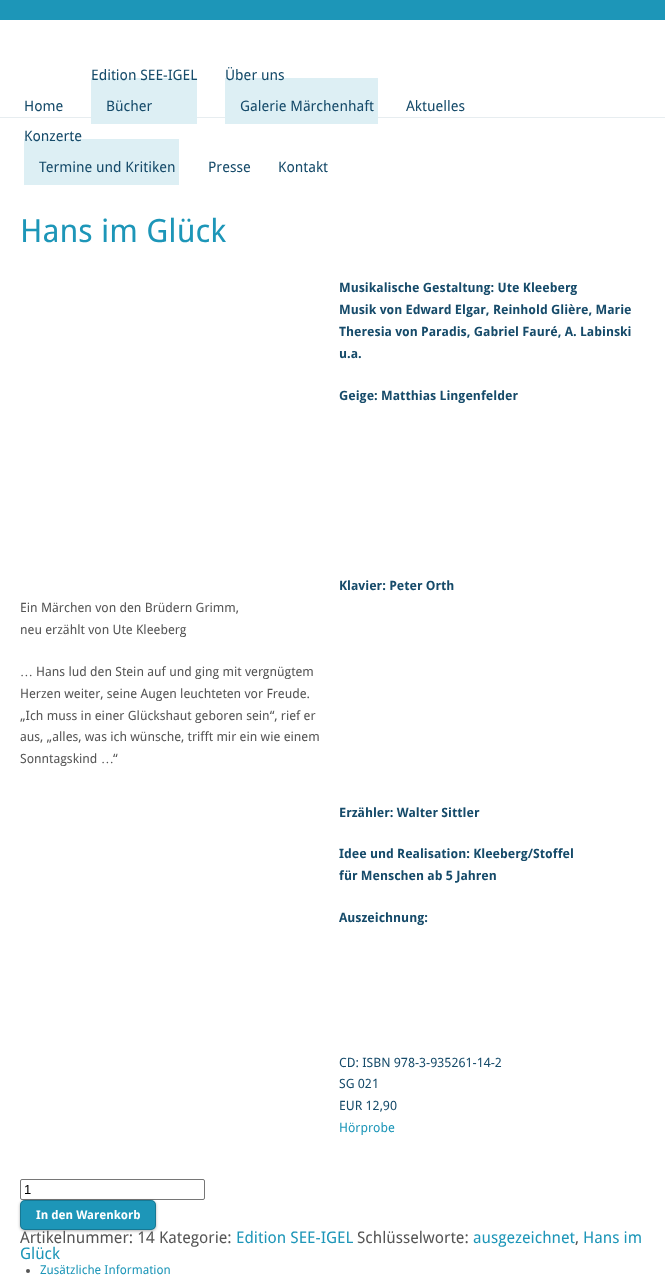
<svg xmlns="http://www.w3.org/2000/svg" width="665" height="1280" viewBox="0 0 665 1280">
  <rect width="100%" height="100%" fill="#fff"/>
  <path d="M0 0h665v20H0z" fill="#1d96b8"/>
  <path d="M0 117h665v1H0z" fill="#e7edf0"/>
  <path d="M91 78h106v46H91z" fill="#ddeff4"/>
  <path d="M225 78h153v46H225z" fill="#ddeff4"/>
  <path d="M24 139h155v46H24z" fill="#ddeff4"/>
  <rect x="20.5" y="1179.5" width="184" height="20" rx="1.5" fill="none" stroke="#767676"/>
  <rect x="20" y="1201" width="136" height="30" rx="5" fill="#0000004d" filter="blur(1.5px)"/>
  <rect x="20" y="1200" width="136" height="30" rx="5" fill="#1d96b8"/>
  <rect x="20.5" y="1200.5" width="135" height="29" rx="4.5" fill="none" stroke="#00000033"/>
  <circle cx="28" cy="1271" r="2" fill="#555"/>
  <g font-family="Droid Sans" font-size="14.5" fill="#164b6a">
    <text x="24" y="111">Home</text>
    <text x="91" y="80">Edition SEE-IGEL</text>
    <text x="106" y="111">Bücher</text>
    <text x="225" y="80">Über uns</text>
    <text x="240" y="111">Galerie Märchenhaft</text>
    <text x="406" y="111">Aktuelles</text>
    <text x="24" y="141">Konzerte</text>
    <text x="39" y="172">Termine und Kritiken</text>
    <text x="208" y="172">Presse</text>
    <text x="278" y="172">Kontakt</text>
  </g>
  <text x="20" y="242" font-family="Droid Sans" font-size="32" fill="#1d96b8">Hans im Glück</text>
  <g font-family="Droid Sans" font-size="12.8" fill="#555">
    <text x="20" y="612">Ein Märchen von den Brüdern Grimm,</text>
    <text x="20" y="634">neu erzählt von Ute Kleeberg</text>
  </g>
  <text x="20" y="676" font-family="Liberation Serif" font-size="12.8" fill="#555">…</text>
  <g font-family="Droid Sans" font-size="12.8" fill="#555">
    <text x="36" y="676">Hans lud den Stein auf und ging mit vergnügtem</text>
    <text x="20" y="698">Herzen weiter, seine Augen leuchteten vor Freude.</text>
    <text x="20" y="720">„Ich muss in einer Glückshaut geboren sein“, rief er</text>
    <text x="20" y="741">aus, „alles, was ich wünsche, trifft mir ein wie einem</text>
    <text x="20" y="763">Sonntagskind</text>
    <text x="113" y="763">“</text>
  </g>
  <text x="101" y="763" font-family="Liberation Serif" font-size="12.8" fill="#555">…</text>
  <g font-family="Droid Sans" font-size="12.8" font-weight="bold" fill="#164b6a">
    <text x="339" y="292">Musikalische Gestaltung: Ute Kleeberg</text>
    <text x="339" y="314">Musik von Edward Elgar, Reinhold Glière, Marie</text>
    <text x="339" y="336">Theresia von Paradis, Gabriel Fauré, A. Labinski</text>
    <text x="339" y="358">u.a.</text>
    <text x="339" y="400">Geige: Matthias Lingenfelder</text>
    <text x="339" y="590">Klavier: Peter Orth</text>
    <text x="339" y="817">Erzähler: Walter Sittler</text>
    <text x="339" y="858">Idee und Realisation: Kleeberg/Stoffel</text>
    <text x="339" y="880">für Menschen ab 5 Jahren</text>
    <text x="339" y="922">Auszeichnung:</text>
  </g>
  <g font-family="Droid Sans" font-size="12.8" fill="#164b6a">
    <text x="339" y="1067">CD: ISBN 978-3-935261-14-2</text>
    <text x="339" y="1088">SG 021</text>
    <text x="339" y="1110">EUR 12,90</text>
  </g>
  <text x="339" y="1132" font-family="Droid Sans" font-size="12.8" fill="#1d96b8">Hörprobe</text>
  <text x="24" y="1194" font-family="Liberation Sans" font-size="13" fill="#000">1</text>
  <text x="36" y="1219" font-family="Droid Sans" font-size="12" font-weight="bold" fill="#fff">In den Warenkorb</text>
  <text x="20" y="1243" font-family="Droid Sans" font-size="16" fill="#555">Artikelnummer: 14 Kategorie:</text>
  <text x="236" y="1243" font-family="Droid Sans" font-size="16" fill="#1d96b8">Edition SEE-IGEL</text>
  <text x="357" y="1243" font-family="Droid Sans" font-size="16" fill="#555">Schlüsselworte:</text>
  <text x="473" y="1243" font-family="Droid Sans" font-size="16" fill="#1d96b8">ausgezeichnet</text>
  <text x="575" y="1243" font-family="Droid Sans" font-size="16" fill="#555">,</text>
  <g font-family="Droid Sans" font-size="16" fill="#1d96b8">
    <text x="583" y="1243">Hans im</text>
    <text x="20" y="1259">Glück</text>
  </g>
  <text x="40" y="1274" font-family="Droid Sans" font-size="12.25" fill="#1d96b8">Zusätzliche Information</text>
</svg>
